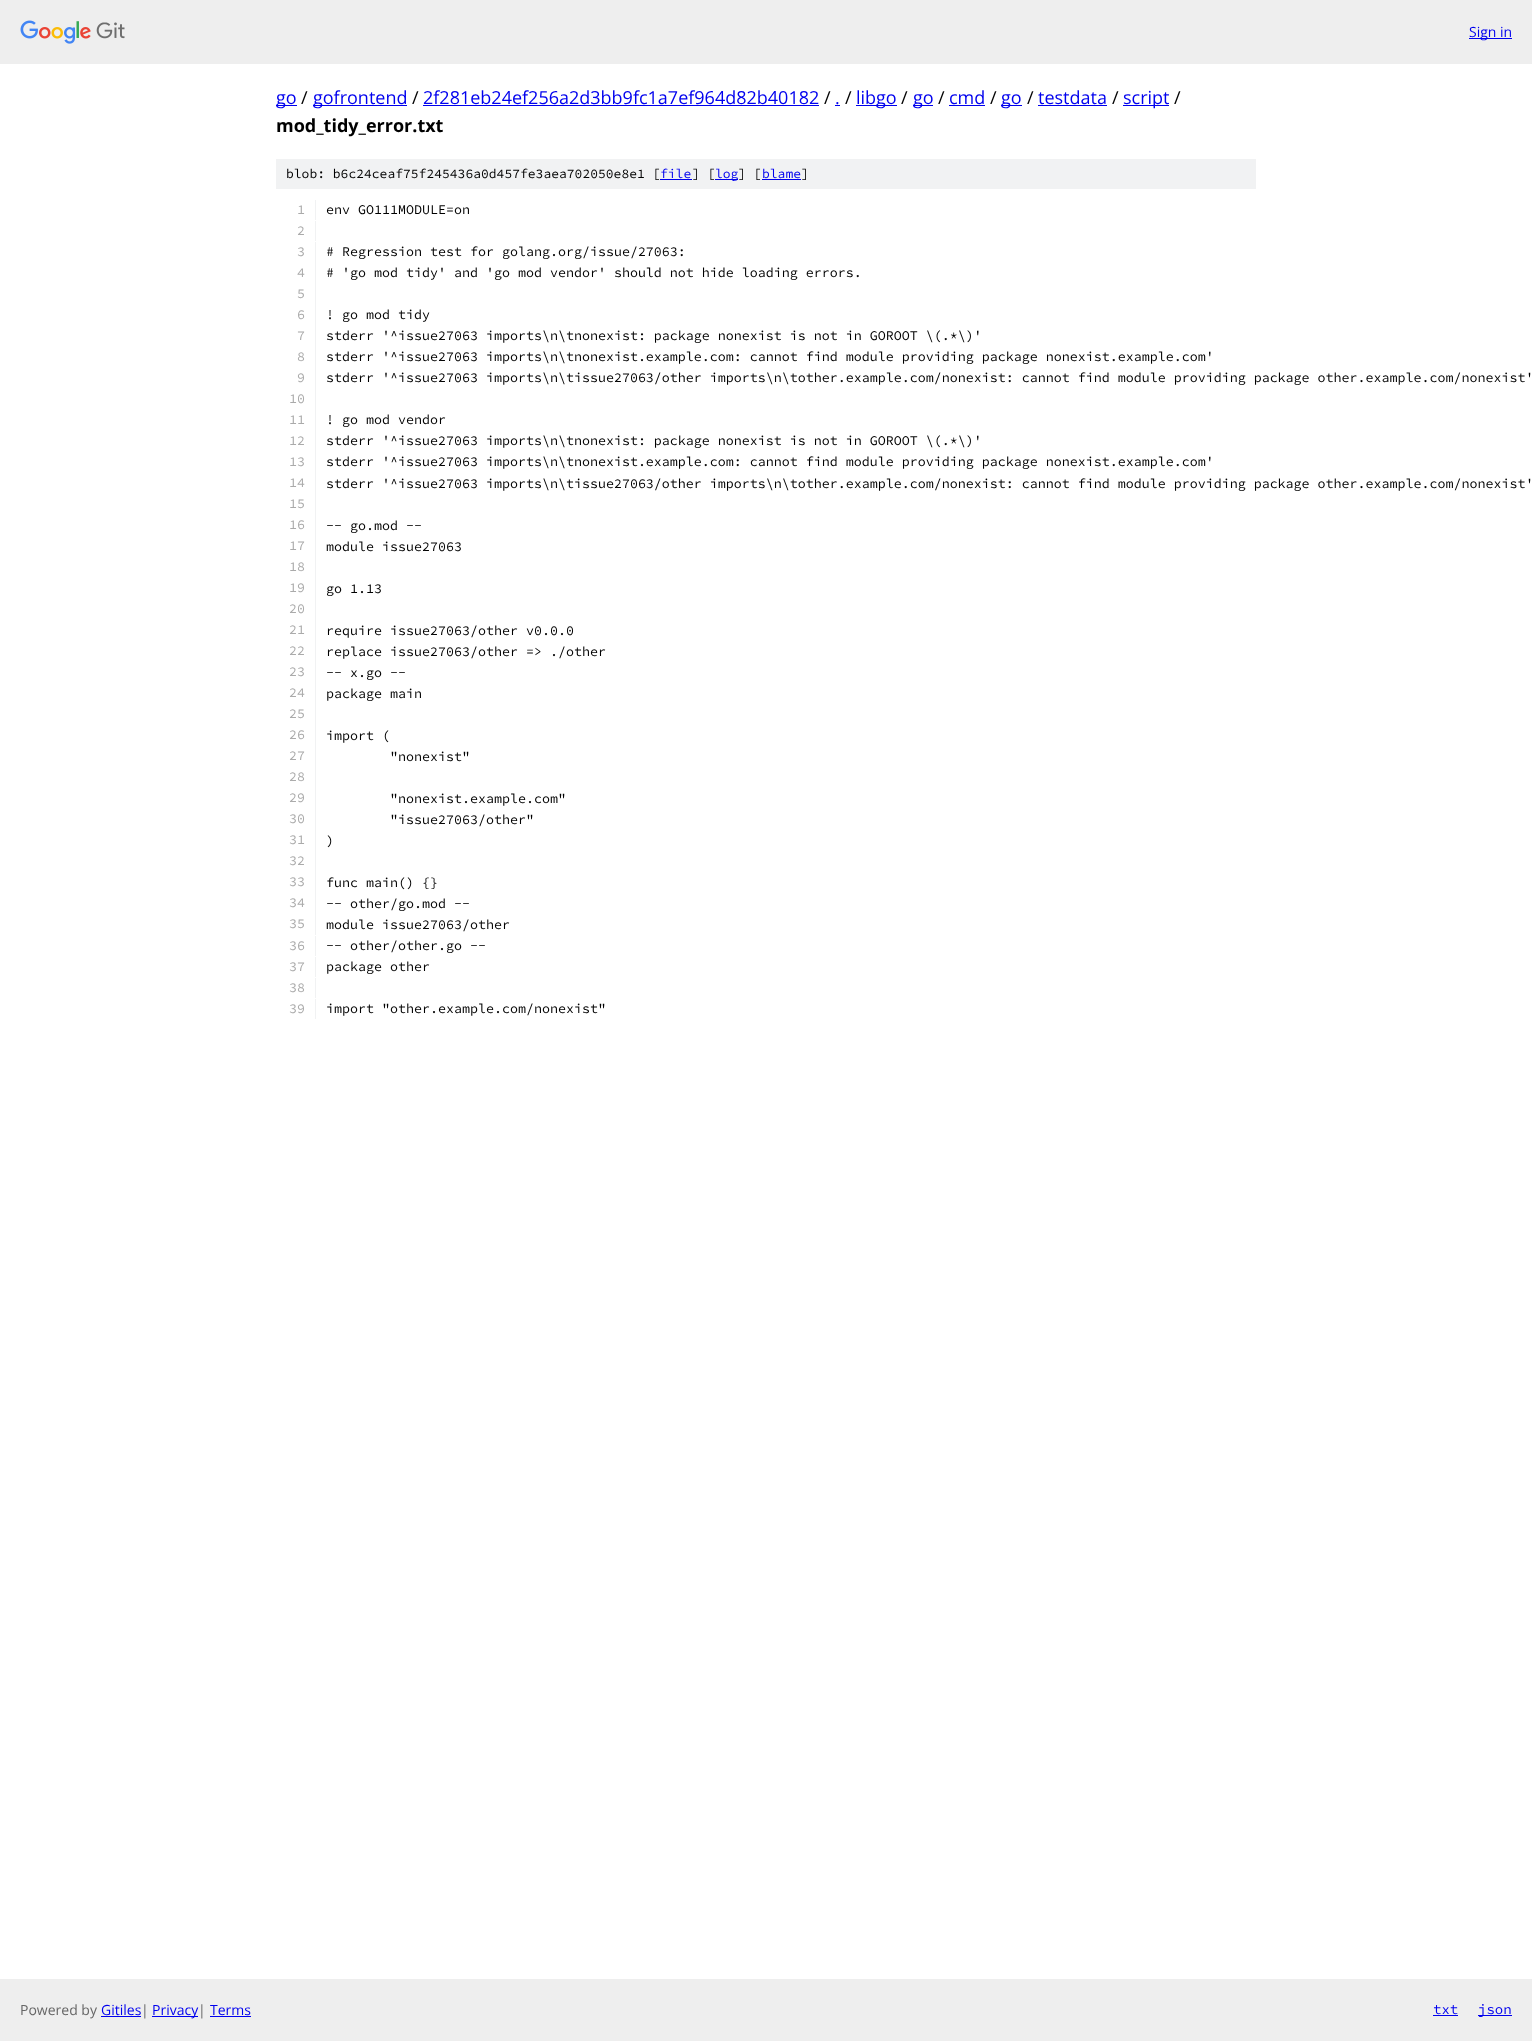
<svg xmlns="http://www.w3.org/2000/svg" width="1532" height="2041" viewBox="0 0 1532 2041">
  <rect width="100%" height="100%" fill="#fff"/>
  <path d="M0 0h1532v64H0z" fill="#eee"/>
  <image x="20" y="20" width="105" height="24" href="img/1.png"/>
  <path d="M1469 38h43v1H1469z" fill="#00e"/>
  <path d="M276 105h21v1H276z" fill="#00e"/>
  <path d="M313 105h94v1H313z" fill="#00e"/>
  <path d="M423 105h396v1H423z" fill="#00e"/>
  <path d="M835 105h5v1H835z" fill="#00e"/>
  <path d="M856 105h41v1H856z" fill="#00e"/>
  <path d="M913 105h20v1H913z" fill="#00e"/>
  <path d="M949 105h36v1H949z" fill="#00e"/>
  <path d="M1001 105h21v1H1001z" fill="#00e"/>
  <path d="M1038 105h69v1H1038z" fill="#00e"/>
  <path d="M1123 105h46v1H1123z" fill="#00e"/>
  <path d="M276 159h980v30H276z" fill="#f1f2f3"/>
  <path d="M660 179h32v1H660z" fill="#00e"/>
  <path d="M715 179h23v1H715z" fill="#00e"/>
  <path d="M762 179h39v1H762z" fill="#00e"/>
  <path d="M315 200h1v20H315z" fill="#f1f2f3"/>
  <path d="M315 221h1v20H315z" fill="#f1f2f3"/>
  <path d="M315 242h1v693H315z" fill="#f1f2f3"/>
  <path d="M315 936h1v20H315z" fill="#f1f2f3"/>
  <path d="M315 957h1v20H315z" fill="#f1f2f3"/>
  <path d="M315 978h1v20H315z" fill="#f1f2f3"/>
  <path d="M315 999h1v20H315z" fill="#f1f2f3"/>
  <path d="M0 1979h1532v62H0z" fill="#eee"/>
  <path d="M101 2016h40v1H101z" fill="#00e"/>
  <path d="M152 2016h46v1H152z" fill="#00e"/>
  <path d="M210 2016h41v1H210z" fill="#00e"/>
  <path d="M1433 2015h25v1H1433z" fill="#00e"/>
  <path d="M1478 2015h34v1H1478z" fill="#00e"/>
  <text x="1469" y="37" font-family="Open Sans" font-size="14" fill="#00e">Sign in</text>
  <text x="276" y="104" font-family="Open Sans" font-size="18" fill="#00e">go</text>
  <text x="301" y="104" font-family="Open Sans" font-size="18" fill="#000">/</text>
  <text x="313" y="104" font-family="Open Sans" font-size="18" fill="#00e">gofrontend</text>
  <text x="412" y="104" font-family="Open Sans" font-size="18" fill="#000">/</text>
  <text x="423" y="104" font-family="Open Sans" font-size="18" fill="#00e">2f281eb24ef256a2d3bb9fc1a7ef964d82b40182</text>
  <text x="824" y="104" font-family="Open Sans" font-size="18" fill="#000">/</text>
  <text x="835" y="104" font-family="Open Sans" font-size="18" fill="#00e">.</text>
  <text x="845" y="104" font-family="Open Sans" font-size="18" fill="#000">/</text>
  <text x="856" y="104" font-family="Open Sans" font-size="18" fill="#00e">libgo</text>
  <text x="901" y="104" font-family="Open Sans" font-size="18" fill="#000">/</text>
  <text x="913" y="104" font-family="Open Sans" font-size="18" fill="#00e">go</text>
  <text x="938" y="104" font-family="Open Sans" font-size="18" fill="#000">/</text>
  <text x="949" y="104" font-family="Open Sans" font-size="18" fill="#00e">cmd</text>
  <text x="990" y="104" font-family="Open Sans" font-size="18" fill="#000">/</text>
  <text x="1001" y="104" font-family="Open Sans" font-size="18" fill="#00e">go</text>
  <text x="1027" y="104" font-family="Open Sans" font-size="18" fill="#000">/</text>
  <text x="1038" y="104" font-family="Open Sans" font-size="18" fill="#00e">testdata</text>
  <text x="1112" y="104" font-family="Open Sans" font-size="18" fill="#000">/</text>
  <text x="1123" y="104" font-family="Open Sans" font-size="18" fill="#00e">script</text>
  <text x="1174" y="104" font-family="Open Sans" font-size="18" fill="#000">/</text>
  <text x="276" y="132" font-family="Open Sans" font-size="18" font-weight="bold" fill="#000">mod_tidy_error.txt</text>
  <text x="286" y="178" font-family="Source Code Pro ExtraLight" font-size="13" font-weight="200" fill="#000">blob: b6c24ceaf75f245436a0d457fe3aea702050e8e1 [</text>
  <text x="660" y="178" font-family="Source Code Pro ExtraLight" font-size="13" font-weight="200" fill="#00e">file</text>
  <text x="692" y="178" font-family="Source Code Pro ExtraLight" font-size="13" font-weight="200" fill="#000">] [</text>
  <text x="715" y="178" font-family="Source Code Pro ExtraLight" font-size="13" font-weight="200" fill="#00e">log</text>
  <text x="738" y="178" font-family="Source Code Pro ExtraLight" font-size="13" font-weight="200" fill="#000">] [</text>
  <text x="762" y="178" font-family="Source Code Pro ExtraLight" font-size="13" font-weight="200" fill="#00e">blame</text>
  <text x="801" y="178" font-family="Source Code Pro ExtraLight" font-size="13" font-weight="200" fill="#000">]</text>
  <text x="297" y="214" font-family="Source Code Pro ExtraLight" font-size="13.33" font-weight="200" fill="#aaa">1</text>
  <text x="326" y="214" font-family="Source Code Pro ExtraLight" font-size="13.33" font-weight="200" fill="#000">env GO111MODULE=on</text>
  <g font-family="Source Code Pro ExtraLight" font-size="13.33" font-weight="200" fill="#aaa">
    <text x="297" y="235">2</text>
    <text x="297" y="256">3</text>
  </g>
  <text x="326" y="256" font-family="Source Code Pro ExtraLight" font-size="13.33" font-weight="200" fill="#000"># Regression test for golang.org/issue/27063:</text>
  <text x="297" y="277" font-family="Source Code Pro ExtraLight" font-size="13.33" font-weight="200" fill="#aaa">4</text>
  <text x="326" y="277" font-family="Source Code Pro ExtraLight" font-size="13.33" font-weight="200" fill="#000"># 'go mod tidy' and 'go mod vendor' should not hide loading errors.</text>
  <g font-family="Source Code Pro ExtraLight" font-size="13.33" font-weight="200" fill="#aaa">
    <text x="297" y="298">5</text>
    <text x="297" y="319">6</text>
  </g>
  <text x="326" y="319" font-family="Source Code Pro ExtraLight" font-size="13.33" font-weight="200" fill="#000">! go mod tidy</text>
  <text x="297" y="340" font-family="Source Code Pro ExtraLight" font-size="13.33" font-weight="200" fill="#aaa">7</text>
  <text x="326" y="340" font-family="Source Code Pro ExtraLight" font-size="13.33" font-weight="200" fill="#000">stderr '^issue27063 imports\n\tnonexist: package nonexist is not in GOROOT \(.*\)'</text>
  <text x="297" y="361" font-family="Source Code Pro ExtraLight" font-size="13.33" font-weight="200" fill="#aaa">8</text>
  <text x="326" y="361" font-family="Source Code Pro ExtraLight" font-size="13.33" font-weight="200" fill="#000">stderr '^issue27063 imports\n\tnonexist.example.com: cannot find module providing package nonexist.example.com'</text>
  <text x="297" y="382" font-family="Source Code Pro ExtraLight" font-size="13.33" font-weight="200" fill="#aaa">9</text>
  <text x="326" y="382" font-family="Source Code Pro ExtraLight" font-size="13.33" font-weight="200" fill="#000">stderr '^issue27063 imports\n\tissue27063/other imports\n\tother.example.com/nonexist: cannot find module providing package other.example.com/nonexist'</text>
  <g font-family="Source Code Pro ExtraLight" font-size="13.33" font-weight="200" fill="#aaa">
    <text x="289" y="403">10</text>
    <text x="289" y="424">11</text>
  </g>
  <text x="326" y="424" font-family="Source Code Pro ExtraLight" font-size="13.33" font-weight="200" fill="#000">! go mod vendor</text>
  <text x="289" y="445" font-family="Source Code Pro ExtraLight" font-size="13.33" font-weight="200" fill="#aaa">12</text>
  <text x="326" y="445" font-family="Source Code Pro ExtraLight" font-size="13.33" font-weight="200" fill="#000">stderr '^issue27063 imports\n\tnonexist: package nonexist is not in GOROOT \(.*\)'</text>
  <text x="289" y="466" font-family="Source Code Pro ExtraLight" font-size="13.33" font-weight="200" fill="#aaa">13</text>
  <text x="326" y="466" font-family="Source Code Pro ExtraLight" font-size="13.33" font-weight="200" fill="#000">stderr '^issue27063 imports\n\tnonexist.example.com: cannot find module providing package nonexist.example.com'</text>
  <text x="289" y="487" font-family="Source Code Pro ExtraLight" font-size="13.33" font-weight="200" fill="#aaa">14</text>
  <text x="326" y="488" font-family="Source Code Pro ExtraLight" font-size="13.33" font-weight="200" fill="#000">stderr '^issue27063 imports\n\tissue27063/other imports\n\tother.example.com/nonexist: cannot find module providing package other.example.com/nonexist'</text>
  <g font-family="Source Code Pro ExtraLight" font-size="13.33" font-weight="200" fill="#aaa">
    <text x="289" y="508">15</text>
    <text x="289" y="529">16</text>
  </g>
  <text x="326" y="530" font-family="Source Code Pro ExtraLight" font-size="13.33" font-weight="200" fill="#000">-- go.mod --</text>
  <text x="289" y="550" font-family="Source Code Pro ExtraLight" font-size="13.33" font-weight="200" fill="#aaa">17</text>
  <text x="326" y="551" font-family="Source Code Pro ExtraLight" font-size="13.33" font-weight="200" fill="#000">module issue27063</text>
  <g font-family="Source Code Pro ExtraLight" font-size="13.33" font-weight="200" fill="#aaa">
    <text x="289" y="571">18</text>
    <text x="289" y="592">19</text>
  </g>
  <text x="326" y="593" font-family="Source Code Pro ExtraLight" font-size="13.33" font-weight="200" fill="#000">go 1.13</text>
  <g font-family="Source Code Pro ExtraLight" font-size="13.33" font-weight="200" fill="#aaa">
    <text x="289" y="613">20</text>
    <text x="289" y="634">21</text>
  </g>
  <text x="326" y="635" font-family="Source Code Pro ExtraLight" font-size="13.33" font-weight="200" fill="#000">require issue27063/other v0.0.0</text>
  <text x="289" y="655" font-family="Source Code Pro ExtraLight" font-size="13.33" font-weight="200" fill="#aaa">22</text>
  <text x="326" y="656" font-family="Source Code Pro ExtraLight" font-size="13.33" font-weight="200" fill="#000">replace issue27063/other =&gt; ./other</text>
  <text x="289" y="676" font-family="Source Code Pro ExtraLight" font-size="13.33" font-weight="200" fill="#aaa">23</text>
  <text x="326" y="677" font-family="Source Code Pro ExtraLight" font-size="13.33" font-weight="200" fill="#000">-- x.go --</text>
  <text x="289" y="697" font-family="Source Code Pro ExtraLight" font-size="13.33" font-weight="200" fill="#aaa">24</text>
  <text x="326" y="698" font-family="Source Code Pro ExtraLight" font-size="13.33" font-weight="200" fill="#000">package main</text>
  <g font-family="Source Code Pro ExtraLight" font-size="13.33" font-weight="200" fill="#aaa">
    <text x="289" y="718">25</text>
    <text x="289" y="739">26</text>
  </g>
  <text x="326" y="740" font-family="Source Code Pro ExtraLight" font-size="13.33" font-weight="200" fill="#000">import (</text>
  <text x="289" y="760" font-family="Source Code Pro ExtraLight" font-size="13.33" font-weight="200" fill="#aaa">27</text>
  <text x="390" y="761" font-family="Source Code Pro ExtraLight" font-size="13.33" font-weight="200" fill="#000">"nonexist"</text>
  <g font-family="Source Code Pro ExtraLight" font-size="13.33" font-weight="200" fill="#aaa">
    <text x="289" y="781">28</text>
    <text x="289" y="802">29</text>
  </g>
  <text x="390" y="803" font-family="Source Code Pro ExtraLight" font-size="13.33" font-weight="200" fill="#000">"nonexist.example.com"</text>
  <text x="289" y="823" font-family="Source Code Pro ExtraLight" font-size="13.33" font-weight="200" fill="#aaa">30</text>
  <text x="390" y="824" font-family="Source Code Pro ExtraLight" font-size="13.33" font-weight="200" fill="#000">"issue27063/other"</text>
  <text x="289" y="844" font-family="Source Code Pro ExtraLight" font-size="13.33" font-weight="200" fill="#aaa">31</text>
  <text x="326" y="845" font-family="Source Code Pro ExtraLight" font-size="13.33" font-weight="200" fill="#000">)</text>
  <g font-family="Source Code Pro ExtraLight" font-size="13.33" font-weight="200" fill="#aaa">
    <text x="289" y="865">32</text>
    <text x="289" y="886">33</text>
  </g>
  <text x="326" y="887" font-family="Source Code Pro ExtraLight" font-size="13.33" font-weight="200" fill="#000">func main() {}</text>
  <text x="289" y="907" font-family="Source Code Pro ExtraLight" font-size="13.33" font-weight="200" fill="#aaa">34</text>
  <text x="326" y="908" font-family="Source Code Pro ExtraLight" font-size="13.33" font-weight="200" fill="#000">-- other/go.mod --</text>
  <text x="289" y="928" font-family="Source Code Pro ExtraLight" font-size="13.33" font-weight="200" fill="#aaa">35</text>
  <text x="326" y="929" font-family="Source Code Pro ExtraLight" font-size="13.33" font-weight="200" fill="#000">module issue27063/other</text>
  <text x="289" y="950" font-family="Source Code Pro ExtraLight" font-size="13.33" font-weight="200" fill="#aaa">36</text>
  <text x="326" y="950" font-family="Source Code Pro ExtraLight" font-size="13.33" font-weight="200" fill="#000">-- other/other.go --</text>
  <text x="289" y="971" font-family="Source Code Pro ExtraLight" font-size="13.33" font-weight="200" fill="#aaa">37</text>
  <text x="326" y="971" font-family="Source Code Pro ExtraLight" font-size="13.33" font-weight="200" fill="#000">package other</text>
  <g font-family="Source Code Pro ExtraLight" font-size="13.33" font-weight="200" fill="#aaa">
    <text x="289" y="992">38</text>
    <text x="289" y="1013">39</text>
  </g>
  <text x="326" y="1013" font-family="Source Code Pro ExtraLight" font-size="13.33" font-weight="200" fill="#000">import "other.example.com/nonexist"</text>
  <text x="20" y="2015" font-family="Open Sans" font-size="14" fill="#666">Powered by</text>
  <text x="101" y="2015" font-family="Open Sans" font-size="14" fill="#00e">Gitiles</text>
  <text x="141" y="2015" font-family="Open Sans" font-size="14" fill="#666">|</text>
  <text x="152" y="2015" font-family="Open Sans" font-size="14" fill="#00e">Privacy</text>
  <text x="198" y="2015" font-family="Open Sans" font-size="14" fill="#666">|</text>
  <text x="210" y="2015" font-family="Open Sans" font-size="14" fill="#00e">Terms</text>
  <g font-family="Source Code Pro ExtraLight" font-size="14" font-weight="200" fill="#00e">
    <text x="1433" y="2014">txt</text>
    <text x="1478" y="2014">json</text>
  </g>
</svg>
